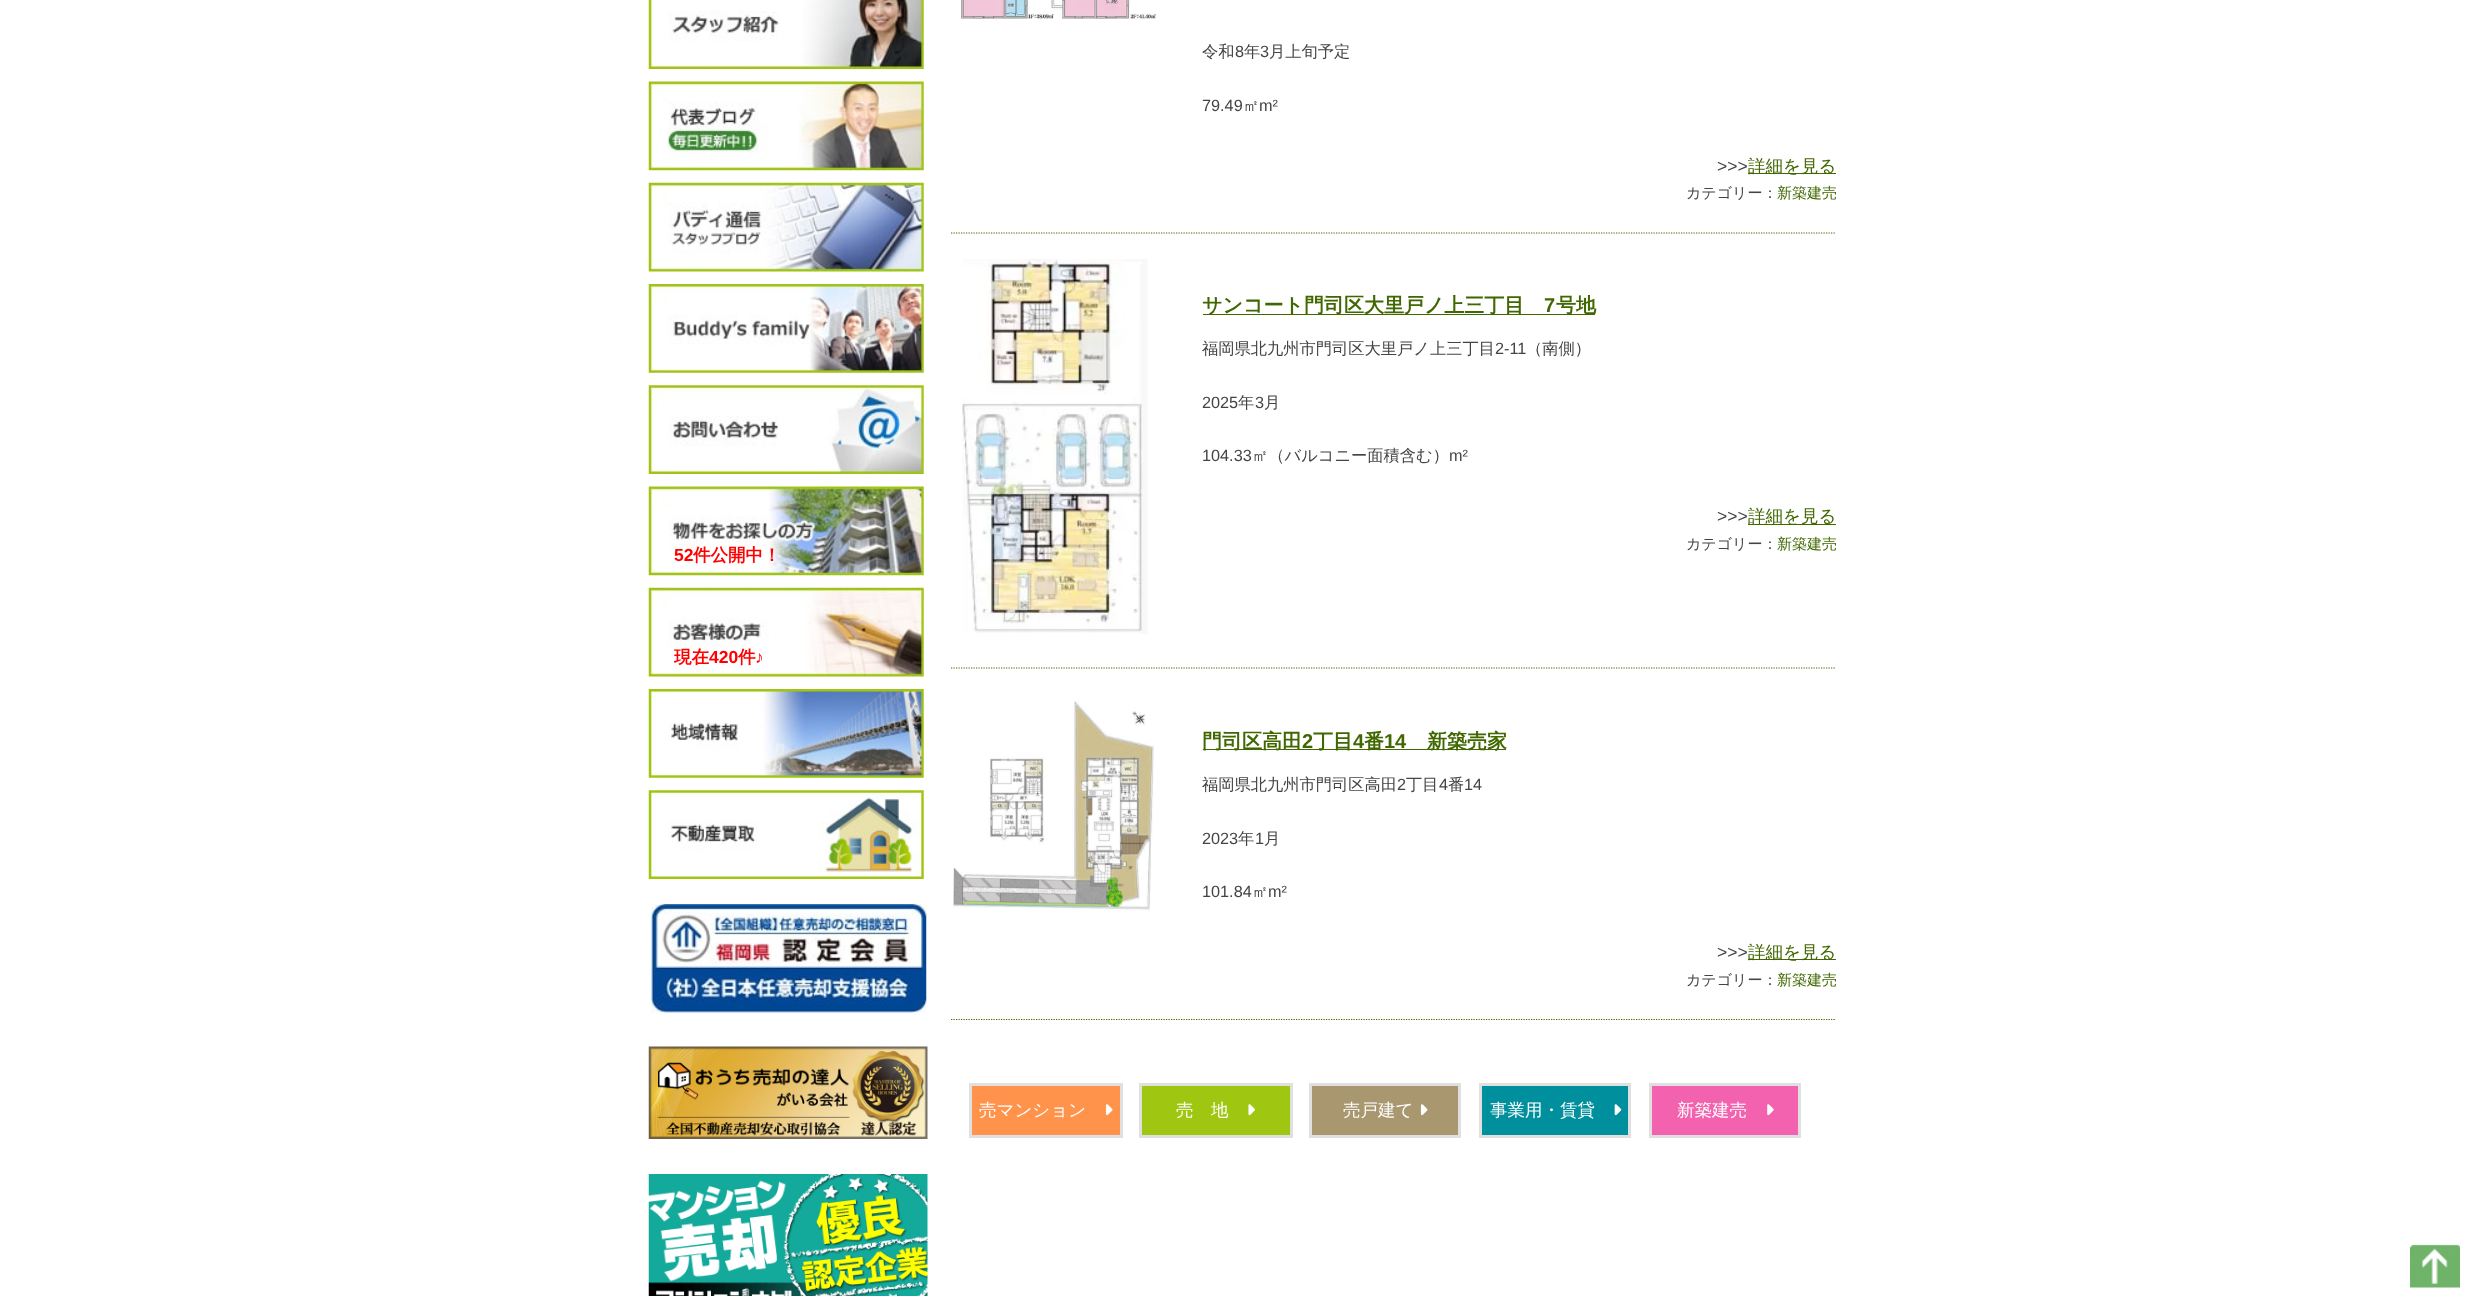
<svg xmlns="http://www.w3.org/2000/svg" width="2484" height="1296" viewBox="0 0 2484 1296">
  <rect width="100%" height="100%" fill="#fff"/>
  <image x="648" y="0" width="276" height="69" href="img/1.png"/>
  <image x="648" y="81" width="276" height="90" href="img/2.png"/>
  <image x="648" y="182" width="276" height="90" href="img/3.png"/>
  <image x="648" y="284" width="276" height="89" href="img/4.png"/>
  <image x="648" y="385" width="276" height="89" href="img/5.png"/>
  <image x="648" y="486" width="276" height="90" href="img/6.png"/>
  <image x="648" y="587" width="276" height="90" href="img/7.png"/>
  <image x="648" y="689" width="276" height="89" href="img/8.png"/>
  <image x="648" y="790" width="276" height="89" href="img/9.png"/>
  <image x="651" y="904" width="276" height="109" href="img/10.png"/>
  <image x="648" y="1046" width="280" height="93" href="img/11.png"/>
  <image x="648" y="1174" width="280" height="122" href="img/12.png"/>
  <path d="M951 233H1836" fill="none" stroke="#406700" stroke-width="1.2" stroke-dasharray="1.25 1.25"/>
  <image x="960" y="0" width="197" height="19" href="img/13.png"/>
  <path d="M1748 173h88v1H1748z" fill="#406700"/>
  <path d="M951 668H1836" fill="none" stroke="#406700" stroke-width="1.2" stroke-dasharray="1.25 1.25"/>
  <image x="962" y="259" width="186" height="375" href="img/14.png"/>
  <path d="M1203 314h392v1H1203z" fill="#406700"/>
  <path d="M1748 524h88v1H1748z" fill="#406700"/>
  <path d="M951 1019.5H1836" fill="none" stroke="#406700" stroke-width="1.2" stroke-dasharray="1.25 1.25"/>
  <image x="953" y="701" width="201" height="210" href="img/15.png"/>
  <path d="M1203 749h303v1H1203z" fill="#406700"/>
  <path d="M1748 959h88v1H1748z" fill="#406700"/>
  <path d="M970.5 1084.5h151v52H970.5z" fill="#ff934b" stroke="#e0e0e0" stroke-width="3"/>
  <image x="1105" y="1104" width="8" height="12" href="img/16.png"/>
  <path d="M1140.5 1084.5h151v52H1140.5z" fill="#9fc611" stroke="#e0e0e0" stroke-width="3"/>
  <image x="1248" y="1104" width="7" height="12" href="img/17.png"/>
  <path d="M1310.5 1084.5h149v52H1310.5z" fill="#a99770" stroke="#e0e0e0" stroke-width="3"/>
  <image x="1420" y="1104" width="8" height="12" href="img/18.png"/>
  <path d="M1480.5 1084.5h149v52H1480.5z" fill="#008f9c" stroke="#e0e0e0" stroke-width="3"/>
  <image x="1614" y="1104" width="8" height="12" href="img/19.png"/>
  <path d="M1650.5 1084.5h149v52H1650.5z" fill="#f262af" stroke="#e0e0e0" stroke-width="3"/>
  <image x="1767" y="1104" width="7" height="12" href="img/20.png"/>
  <image x="2410" y="1244" width="50" height="44" href="img/21.png"/>
  <text x="674" y="561" font-family="Liberation Sans" font-size="17.5" font-weight="bold" fill="#f00">52</text>
  <g font-family="WenQuanYi Zen Hei" font-size="17.5" font-weight="bold" fill="#f00">
    <text x="693" y="561">件公開中！</text>
    <text x="674" y="663">現在</text>
  </g>
  <text x="709" y="663" font-family="Liberation Sans" font-size="17.5" font-weight="bold" fill="#f00">420</text>
  <text x="738" y="663" font-family="WenQuanYi Zen Hei" font-size="17.5" font-weight="bold" fill="#f00">件</text>
  <text x="755" y="663" font-family="Liberation Sans" font-size="17.5" font-weight="bold" fill="#f00">♪</text>
  <text x="1202" y="57" font-family="WenQuanYi Zen Hei" font-size="16.25" font-weight="500" fill="#444">令和</text>
  <text x="1235" y="57" font-family="Liberation Sans" font-size="16.25" fill="#444">8</text>
  <text x="1244" y="57" font-family="WenQuanYi Zen Hei" font-size="16.25" font-weight="500" fill="#444">年</text>
  <text x="1260" y="57" font-family="Liberation Sans" font-size="16.25" fill="#444">3</text>
  <text x="1269" y="57" font-family="WenQuanYi Zen Hei" font-size="16.25" font-weight="500" fill="#444">月上旬予定</text>
  <text x="1202" y="111" font-family="Liberation Sans" font-size="16.25" fill="#444">79.49</text>
  <text x="1243" y="111" font-family="WenQuanYi Zen Hei" font-size="16.25" font-weight="500" fill="#444">㎡</text>
  <text x="1259" y="111" font-family="Liberation Sans" font-size="16.25" fill="#444">m²</text>
  <text x="1717" y="172" font-family="Liberation Sans" font-size="17.5" fill="#444">&gt;&gt;&gt;</text>
  <text x="1748" y="172" font-family="WenQuanYi Zen Hei" font-size="17.5" font-weight="500" fill="#406700">詳細を見る</text>
  <text x="1686" y="198" font-family="WenQuanYi Zen Hei" font-size="15" font-weight="500" fill="#444">カテゴリー：</text>
  <text x="1777" y="198" font-family="WenQuanYi Zen Hei" font-size="15" font-weight="500" fill="#406700">新築建売</text>
  <text x="1202" y="312" font-family="WenQuanYi Zen Hei" font-size="20" font-weight="bold" fill="#406700">サンコート門司区大里戸ノ上三丁目</text>
  <text x="1544" y="312" font-family="Liberation Sans" font-size="20" font-weight="bold" fill="#406700">7</text>
  <text x="1556" y="312" font-family="WenQuanYi Zen Hei" font-size="20" font-weight="bold" fill="#406700">号地</text>
  <text x="1202" y="354" font-family="WenQuanYi Zen Hei" font-size="16.25" font-weight="500" fill="#444">福岡県北九州市門司区大里戸ノ上三丁目</text>
  <text x="1495" y="354" font-family="Liberation Sans" font-size="16.25" fill="#444">2-11</text>
  <text x="1526" y="354" font-family="WenQuanYi Zen Hei" font-size="16.25" font-weight="500" fill="#444">（南側）</text>
  <text x="1202" y="408" font-family="Liberation Sans" font-size="16.25" fill="#444">2025</text>
  <text x="1238" y="408" font-family="WenQuanYi Zen Hei" font-size="16.25" font-weight="500" fill="#444">年</text>
  <text x="1255" y="408" font-family="Liberation Sans" font-size="16.25" fill="#444">3</text>
  <text x="1264" y="408" font-family="WenQuanYi Zen Hei" font-size="16.25" font-weight="500" fill="#444">月</text>
  <text x="1202" y="461" font-family="Liberation Sans" font-size="16.25" fill="#444">104.33</text>
  <text x="1252" y="461" font-family="WenQuanYi Zen Hei" font-size="16.25" font-weight="500" fill="#444">㎡（バルコニー面積含む）</text>
  <text x="1449" y="461" font-family="Liberation Sans" font-size="16.25" fill="#444">m²</text>
  <text x="1717" y="522" font-family="Liberation Sans" font-size="17.5" fill="#444">&gt;&gt;&gt;</text>
  <text x="1748" y="522" font-family="WenQuanYi Zen Hei" font-size="17.5" font-weight="500" fill="#406700">詳細を見る</text>
  <text x="1686" y="549" font-family="WenQuanYi Zen Hei" font-size="15" font-weight="500" fill="#444">カテゴリー：</text>
  <text x="1777" y="549" font-family="WenQuanYi Zen Hei" font-size="15" font-weight="500" fill="#406700">新築建売</text>
  <text x="1202" y="748" font-family="WenQuanYi Zen Hei" font-size="20" font-weight="bold" fill="#406700">門司区高田</text>
  <text x="1302" y="748" font-family="Liberation Sans" font-size="20" font-weight="bold" fill="#406700">2</text>
  <text x="1313" y="748" font-family="WenQuanYi Zen Hei" font-size="20" font-weight="bold" fill="#406700">丁目</text>
  <text x="1353" y="748" font-family="Liberation Sans" font-size="20" font-weight="bold" fill="#406700">4</text>
  <text x="1364" y="748" font-family="WenQuanYi Zen Hei" font-size="20" font-weight="bold" fill="#406700">番</text>
  <text x="1384" y="748" font-family="Liberation Sans" font-size="20" font-weight="bold" fill="#406700">14</text>
  <text x="1427" y="748" font-family="WenQuanYi Zen Hei" font-size="20" font-weight="bold" fill="#406700">新築売家</text>
  <text x="1202" y="790" font-family="WenQuanYi Zen Hei" font-size="16.25" font-weight="500" fill="#444">福岡県北九州市門司区高田</text>
  <text x="1397" y="790" font-family="Liberation Sans" font-size="16.25" fill="#444">2</text>
  <text x="1406" y="790" font-family="WenQuanYi Zen Hei" font-size="16.25" font-weight="500" fill="#444">丁目</text>
  <text x="1439" y="790" font-family="Liberation Sans" font-size="16.25" fill="#444">4</text>
  <text x="1448" y="790" font-family="WenQuanYi Zen Hei" font-size="16.25" font-weight="500" fill="#444">番</text>
  <g font-family="Liberation Sans" font-size="16.25" fill="#444">
    <text x="1464" y="790">14</text>
    <text x="1202" y="844">2023</text>
  </g>
  <text x="1238" y="844" font-family="WenQuanYi Zen Hei" font-size="16.25" font-weight="500" fill="#444">年</text>
  <text x="1255" y="844" font-family="Liberation Sans" font-size="16.25" fill="#444">1</text>
  <text x="1264" y="844" font-family="WenQuanYi Zen Hei" font-size="16.25" font-weight="500" fill="#444">月</text>
  <text x="1202" y="897" font-family="Liberation Sans" font-size="16.25" fill="#444">101.84</text>
  <text x="1252" y="897" font-family="WenQuanYi Zen Hei" font-size="16.25" font-weight="500" fill="#444">㎡</text>
  <text x="1268" y="897" font-family="Liberation Sans" font-size="16.25" fill="#444">m²</text>
  <text x="1717" y="958" font-family="Liberation Sans" font-size="17.5" fill="#444">&gt;&gt;&gt;</text>
  <text x="1748" y="958" font-family="WenQuanYi Zen Hei" font-size="17.5" font-weight="500" fill="#406700">詳細を見る</text>
  <text x="1686" y="985" font-family="WenQuanYi Zen Hei" font-size="15" font-weight="500" fill="#444">カテゴリー：</text>
  <text x="1777" y="985" font-family="WenQuanYi Zen Hei" font-size="15" font-weight="500" fill="#406700">新築建売</text>
  <g font-family="WenQuanYi Zen Hei" font-size="17.5" font-weight="500" fill="#fff">
    <text x="979" y="1116">売マンション</text>
    <text x="1176" y="1116">売　地</text>
    <text x="1343" y="1116">売戸建て</text>
    <text x="1490" y="1116">事業用・賃貸</text>
    <text x="1677" y="1116">新築建売</text>
  </g>
</svg>
